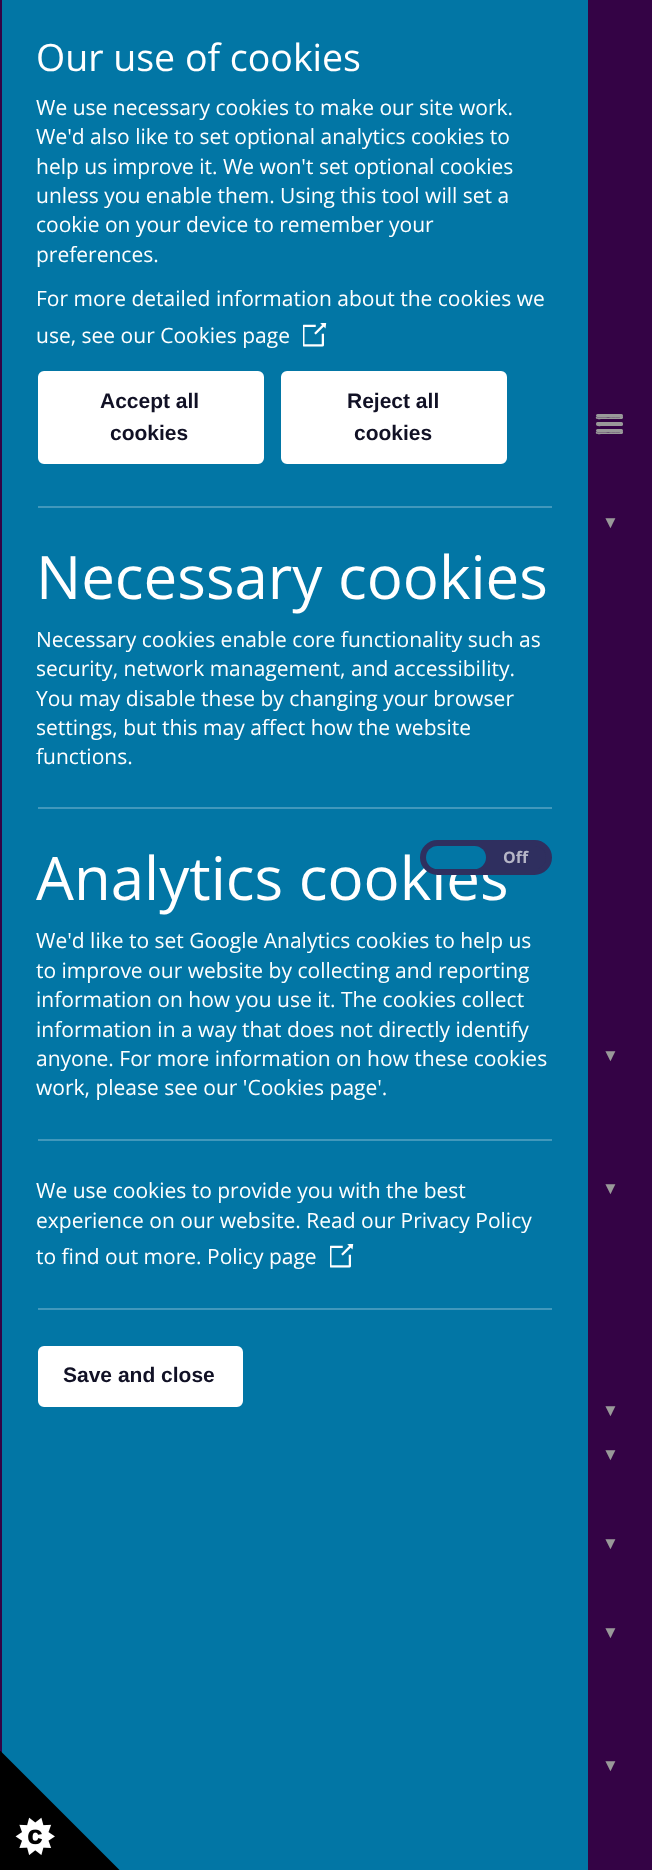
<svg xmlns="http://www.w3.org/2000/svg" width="652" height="1870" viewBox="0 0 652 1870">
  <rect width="100%" height="100%" fill="#340345"/>
  <path d="M2 0h586v1870H2z" fill="#0276a5"/>
  <image x="303" y="323" width="24" height="24" href="img/1.png"/>
  <rect x="39.5" y="372.5" width="223" height="90" rx="4.5" fill="#fff" stroke="#fff" stroke-width="3"/>
  <rect x="282.5" y="372.5" width="223" height="90" rx="4.5" fill="#fff" stroke="#fff" stroke-width="3"/>
  <path d="M38 506h514v2H38z" fill="#4198bc"/>
  <path d="M38 807h514v2H38z" fill="#4198bc"/>
  <path d="M38 1139h514v2H38z" fill="#4198bc"/>
  <image x="330" y="1244" width="24" height="24" href="img/1.png"/>
  <path d="M38 1308h514v2H38z" fill="#4198bc"/>
  <rect x="39.5" y="1347.5" width="202" height="58" rx="4.5" fill="#fff" stroke="#fff" stroke-width="3"/>
  <image x="0" y="1751" width="120" height="119" href="img/2.png"/>
  <path d="M596 417C594.5 420 601.5 419 601.5 419H622C623 418.5 623.5 417 622.5 416L621 417C619 417.5 597 417.5 596 417Z" fill="#999"/>
  <rect x="596" y="414" width="27" height="3" rx="1.5" fill="#999"/>
  <path d="M596 424C595.5 427 601 426 601.5 426H621.5C623 426 623.5 424 622.5 423.5L621.5 424.5C620 425 596.5 424.5 596 424Z" fill="#999"/>
  <rect x="596" y="422" width="27" height="3" rx="1.5" fill="#999"/>
  <path d="M596 432C594.5 435 601.5 434 601.5 434H622C623 433.5 623.5 432 622.5 431L621 432C619 432.5 597 432.5 596 432Z" fill="#999"/>
  <rect x="596" y="429" width="27" height="3" rx="1.5" fill="#999"/>
  <text x="36" y="71" font-family="Open Sans" font-size="37.5" fill="#fff">Our use of cookies</text>
  <g font-family="Open Sans" font-size="21" fill="#fff">
    <text x="36" y="115">We use necessary cookies to make our site work.</text>
    <text x="36" y="144">We'd also like to set optional analytics cookies to</text>
    <text x="36" y="174">help us improve it. We won't set optional cookies</text>
    <text x="36" y="203">unless you enable them. Using this tool will set a</text>
    <text x="36" y="232">cookie on your device to remember your</text>
    <text x="36" y="262">preferences.</text>
    <text x="36" y="306">For more detailed information about the cookies we</text>
    <text x="36" y="343">use, see our Cookies page</text>
  </g>
  <g font-family="Liberation Sans" font-size="21" font-weight="bold" fill="#111125">
    <text x="100" y="408">Accept all</text>
    <text x="110" y="440">cookies</text>
    <text x="347" y="408">Reject all</text>
    <text x="354" y="440">cookies</text>
  </g>
  <text x="36" y="599" font-family="Open Sans" font-size="60" fill="#fff">Necessary cookies</text>
  <g font-family="Open Sans" font-size="21" fill="#fff">
    <text x="36" y="647">Necessary cookies enable core functionality such as</text>
    <text x="36" y="676">security, network management, and accessibility.</text>
    <text x="36" y="706">You may disable these by changing your browser</text>
    <text x="36" y="735">settings, but this may affect how the website</text>
    <text x="36" y="764">functions.</text>
  </g>
  <text x="36" y="900" font-family="Open Sans" font-size="60" fill="#fff">Analytics cookies</text>
  <rect x="423" y="843" width="126" height="29" rx="14.5" fill="#2f2f5f" stroke="#2f2f5f" stroke-width="6"/>
  <rect x="426" y="846" width="60" height="23" rx="11.5" fill="#0276a5"/>
  <text x="503" y="863" font-family="Open Sans" font-size="16" font-weight="bold" fill="#b6b6c7">Off</text>
  <g font-family="Open Sans" font-size="21" fill="#fff">
    <text x="36" y="948">We'd like to set Google Analytics cookies to help us</text>
    <text x="36" y="978">to improve our website by collecting and reporting</text>
    <text x="36" y="1007">information on how you use it. The cookies collect</text>
    <text x="36" y="1037">information in a way that does not directly identify</text>
    <text x="36" y="1066">anyone. For more information on how these cookies</text>
    <text x="36" y="1095">work, please see our 'Cookies page'.</text>
    <text x="36" y="1198">We use cookies to provide you with the best</text>
    <text x="36" y="1228">experience on our website. Read our Privacy Policy</text>
    <text x="36" y="1264">to find out more. Policy page</text>
  </g>
  <text x="63" y="1382" font-family="Liberation Sans" font-size="21" font-weight="bold" fill="#111125">Save and close</text>
  <g font-family="Liberation Sans" font-size="17" fill="#999">
    <text x="602" y="528">▼</text>
    <text x="602" y="1061">▼</text>
    <text x="602" y="1194">▼</text>
    <text x="602" y="1416">▼</text>
    <text x="602" y="1460">▼</text>
    <text x="602" y="1549">▼</text>
    <text x="602" y="1638">▼</text>
    <text x="602" y="1771">▼</text>
  </g>
</svg>
